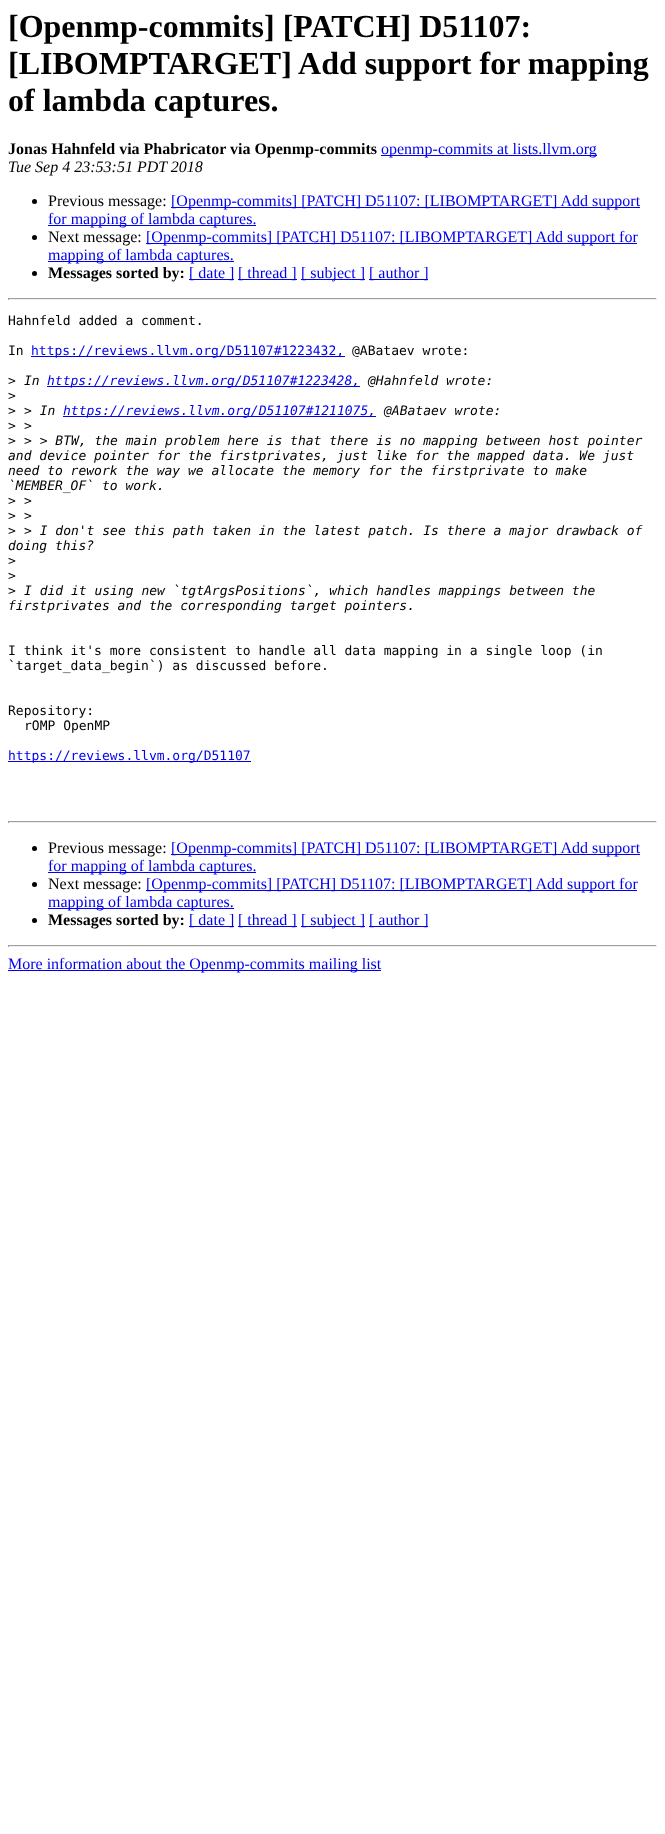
<svg xmlns="http://www.w3.org/2000/svg" width="665" height="1834" viewBox="0 0 665 1834">
  <rect width="100%" height="100%" fill="#fff"/>
  <path d="M381 155h216v1H381z" fill="#00e"/>
  <circle cx="34.5" cy="201.5" r="2.5" fill="#000"/>
  <path d="M171 207h469v1H171z" fill="#00e"/>
  <path d="M48 225h208v1H48z" fill="#00e"/>
  <circle cx="34.5" cy="237.5" r="2.5" fill="#000"/>
  <path d="M146 243h491v1H146z" fill="#00e"/>
  <path d="M48 261h186v1H48z" fill="#00e"/>
  <circle cx="34.5" cy="273.5" r="2.5" fill="#000"/>
  <path d="M189 279h45v1H189z" fill="#00e"/>
  <path d="M238 279h59v1H238z" fill="#00e"/>
  <path d="M301 279h64v1H301z" fill="#00e"/>
  <path d="M369 279h59v1H369z" fill="#00e"/>
  <path d="M8 298h649v1H8z" fill="#9f9f9f"/>
  <path d="M656 298h1v2H656z" fill="#eee"/>
  <path d="M8 299h649v1H8z" fill="#eee"/>
  <path d="M8 298h1v2H8z" fill="#9f9f9f"/>
  <path d="M31 356h314v1H31z" fill="#00e"/>
  <path d="M47 386h313v1H47z" fill="#00e"/>
  <path d="M63 416h313v1H63z" fill="#00e"/>
  <path d="M8 761h243v1H8z" fill="#00e"/>
  <path d="M8 821h649v1H8z" fill="#9f9f9f"/>
  <path d="M656 821h1v2H656z" fill="#eee"/>
  <path d="M8 822h649v1H8z" fill="#eee"/>
  <path d="M8 821h1v2H8z" fill="#9f9f9f"/>
  <circle cx="34.5" cy="848.5" r="2.5" fill="#000"/>
  <path d="M171 854h469v1H171z" fill="#00e"/>
  <path d="M48 872h208v1H48z" fill="#00e"/>
  <circle cx="34.5" cy="884.5" r="2.5" fill="#000"/>
  <path d="M146 890h491v1H146z" fill="#00e"/>
  <path d="M48 908h186v1H48z" fill="#00e"/>
  <circle cx="34.5" cy="920.5" r="2.5" fill="#000"/>
  <path d="M189 926h45v1H189z" fill="#00e"/>
  <path d="M238 926h59v1H238z" fill="#00e"/>
  <path d="M301 926h64v1H301z" fill="#00e"/>
  <path d="M369 926h59v1H369z" fill="#00e"/>
  <path d="M8 945h649v1H8z" fill="#9f9f9f"/>
  <path d="M656 945h1v2H656z" fill="#eee"/>
  <path d="M8 946h649v1H8z" fill="#eee"/>
  <path d="M8 945h1v2H8z" fill="#9f9f9f"/>
  <path d="M8 970h373v1H8z" fill="#00e"/>
  <g font-family="Liberation Serif" font-size="32" font-weight="bold" fill="#000">
    <text x="8" y="37">[Openmp-commits] [PATCH] D51107:</text>
    <text x="8" y="74">[LIBOMPTARGET] Add support for mapping</text>
    <text x="8" y="111">of lambda captures.</text>
  </g>
  <text x="8" y="154" font-family="Liberation Serif" font-size="16" font-weight="bold" fill="#000">Jonas Hahnfeld via Phabricator via Openmp-commits</text>
  <text x="381" y="154" font-family="Liberation Serif" font-size="16" fill="#00e">openmp-commits at lists.llvm.org</text>
  <text x="8" y="172" font-family="Liberation Serif" font-size="16" font-style="italic" fill="#000">Tue Sep 4 23:53:51 PDT 2018</text>
  <text x="48" y="206" font-family="Liberation Serif" font-size="16" fill="#000">Previous message:</text>
  <g font-family="Liberation Serif" font-size="16" fill="#00e">
    <text x="171" y="206">[Openmp-commits] [PATCH] D51107: [LIBOMPTARGET] Add support</text>
    <text x="48" y="224">for mapping of lambda captures.</text>
  </g>
  <text x="48" y="242" font-family="Liberation Serif" font-size="16" fill="#000">Next message:</text>
  <g font-family="Liberation Serif" font-size="16" fill="#00e">
    <text x="146" y="242">[Openmp-commits] [PATCH] D51107: [LIBOMPTARGET] Add support for</text>
    <text x="48" y="260">mapping of lambda captures.</text>
  </g>
  <text x="48" y="278" font-family="Liberation Serif" font-size="16" font-weight="bold" fill="#000">Messages sorted by:</text>
  <g font-family="Liberation Serif" font-size="16" fill="#00e">
    <text x="189" y="278">[ date ]</text>
    <text x="238" y="278">[ thread ]</text>
    <text x="301" y="278">[ subject ]</text>
    <text x="369" y="278">[ author ]</text>
  </g>
  <g font-family="DejaVu Sans Mono" font-size="13" fill="#000">
    <text x="8" y="325">Hahnfeld added a comment.</text>
    <text x="8" y="355">In</text>
  </g>
  <text x="31" y="355" font-family="DejaVu Sans Mono" font-size="13" fill="#00e">https://reviews.llvm.org/D51107#1223432,</text>
  <g font-family="DejaVu Sans Mono" font-size="13" fill="#000">
    <text x="352" y="355">@ABataev wrote:</text>
    <text x="8" y="385">&gt;</text>
  </g>
  <text x="24" y="385" font-family="DejaVu Sans Mono" font-size="13" font-style="italic" fill="#000">In</text>
  <text x="47" y="385" font-family="DejaVu Sans Mono" font-size="13" font-style="italic" fill="#00e">https://reviews.llvm.org/D51107#1223428,</text>
  <text x="368" y="385" font-family="DejaVu Sans Mono" font-size="13" font-style="italic" fill="#000">@Hahnfeld wrote:</text>
  <g font-family="DejaVu Sans Mono" font-size="13" fill="#000">
    <text x="8" y="400">&gt;</text>
    <text x="8" y="415">&gt;</text>
  </g>
  <text x="24" y="415" font-family="DejaVu Sans Mono" font-size="13" font-style="italic" fill="#000">&gt; In</text>
  <text x="63" y="415" font-family="DejaVu Sans Mono" font-size="13" font-style="italic" fill="#00e">https://reviews.llvm.org/D51107#1211075,</text>
  <text x="384" y="415" font-family="DejaVu Sans Mono" font-size="13" font-style="italic" fill="#000">@ABataev wrote:</text>
  <text x="8" y="430" font-family="DejaVu Sans Mono" font-size="13" fill="#000">&gt;</text>
  <text x="24" y="430" font-family="DejaVu Sans Mono" font-size="13" font-style="italic" fill="#000">&gt;</text>
  <text x="8" y="445" font-family="DejaVu Sans Mono" font-size="13" fill="#000">&gt;</text>
  <g font-family="DejaVu Sans Mono" font-size="13" font-style="italic" fill="#000">
    <text x="24" y="445">&gt; &gt; BTW, the main problem here is that there is no mapping between host pointer</text>
    <text x="8" y="460">and device pointer for the firstprivates, just like for the mapped data. We just</text>
    <text x="8" y="475">need to rework the way we allocate the memory for the firstprivate to make</text>
    <text x="8" y="490">`MEMBER_OF` to work.</text>
  </g>
  <text x="8" y="505" font-family="DejaVu Sans Mono" font-size="13" fill="#000">&gt;</text>
  <text x="24" y="505" font-family="DejaVu Sans Mono" font-size="13" font-style="italic" fill="#000">&gt;</text>
  <text x="8" y="520" font-family="DejaVu Sans Mono" font-size="13" fill="#000">&gt;</text>
  <text x="24" y="520" font-family="DejaVu Sans Mono" font-size="13" font-style="italic" fill="#000">&gt;</text>
  <text x="8" y="535" font-family="DejaVu Sans Mono" font-size="13" fill="#000">&gt;</text>
  <g font-family="DejaVu Sans Mono" font-size="13" font-style="italic" fill="#000">
    <text x="24" y="535">&gt; I don't see this path taken in the latest patch. Is there a major drawback of</text>
    <text x="8" y="550">doing this?</text>
  </g>
  <g font-family="DejaVu Sans Mono" font-size="13" fill="#000">
    <text x="8" y="565">&gt;</text>
    <text x="8" y="580">&gt;</text>
    <text x="8" y="595">&gt;</text>
  </g>
  <g font-family="DejaVu Sans Mono" font-size="13" font-style="italic" fill="#000">
    <text x="24" y="595">I did it using new `tgtArgsPositions`, which handles mappings between the</text>
    <text x="8" y="610">firstprivates and the corresponding target pointers.</text>
  </g>
  <g font-family="DejaVu Sans Mono" font-size="13" fill="#000">
    <text x="8" y="655">I think it's more consistent to handle all data mapping in a single loop (in</text>
    <text x="8" y="670">`target_data_begin`) as discussed before.</text>
    <text x="8" y="715">Repository:</text>
    <text x="24" y="730">rOMP OpenMP</text>
  </g>
  <text x="8" y="760" font-family="DejaVu Sans Mono" font-size="13" fill="#00e">https://reviews.llvm.org/D51107</text>
  <text x="48" y="853" font-family="Liberation Serif" font-size="16" fill="#000">Previous message:</text>
  <g font-family="Liberation Serif" font-size="16" fill="#00e">
    <text x="171" y="853">[Openmp-commits] [PATCH] D51107: [LIBOMPTARGET] Add support</text>
    <text x="48" y="871">for mapping of lambda captures.</text>
  </g>
  <text x="48" y="889" font-family="Liberation Serif" font-size="16" fill="#000">Next message:</text>
  <g font-family="Liberation Serif" font-size="16" fill="#00e">
    <text x="146" y="889">[Openmp-commits] [PATCH] D51107: [LIBOMPTARGET] Add support for</text>
    <text x="48" y="907">mapping of lambda captures.</text>
  </g>
  <text x="48" y="925" font-family="Liberation Serif" font-size="16" font-weight="bold" fill="#000">Messages sorted by:</text>
  <g font-family="Liberation Serif" font-size="16" fill="#00e">
    <text x="189" y="925">[ date ]</text>
    <text x="238" y="925">[ thread ]</text>
    <text x="301" y="925">[ subject ]</text>
    <text x="369" y="925">[ author ]</text>
    <text x="8" y="969">More information about the Openmp-commits mailing list</text>
  </g>
</svg>
